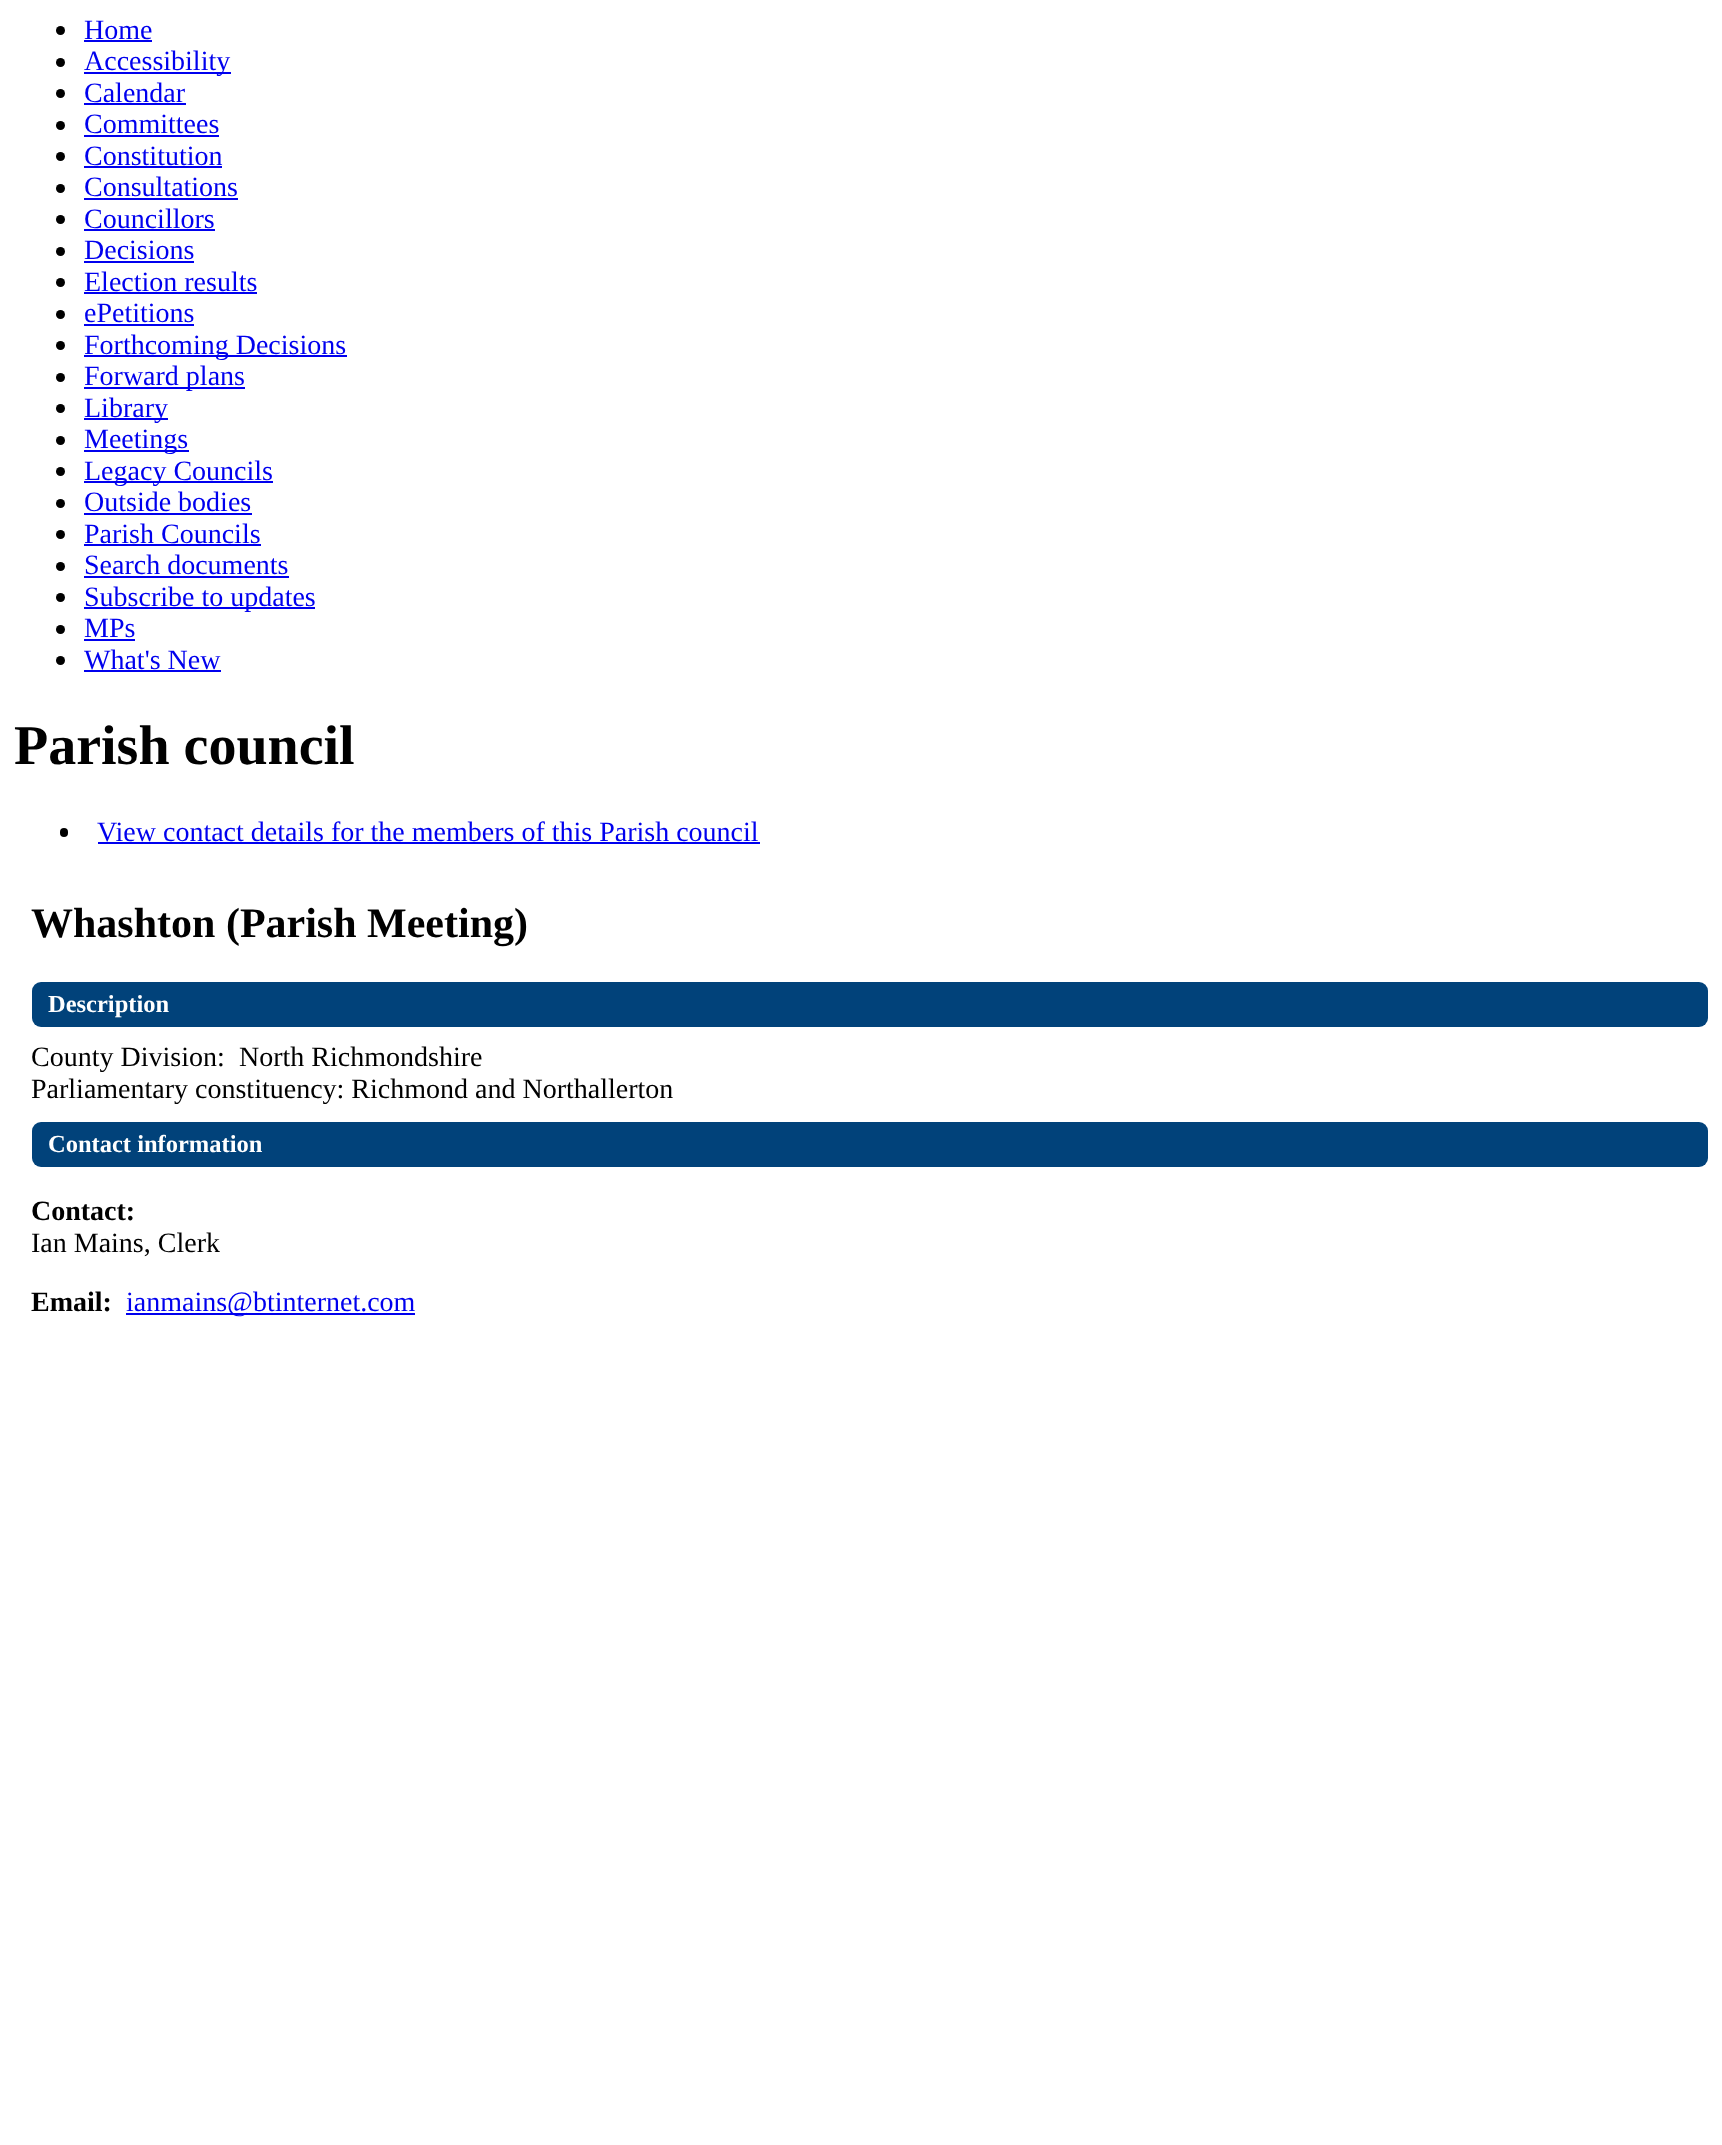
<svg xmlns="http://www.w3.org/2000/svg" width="1722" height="2145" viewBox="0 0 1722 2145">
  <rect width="100%" height="100%" fill="#fff"/>
  <circle cx="60.5" cy="30.5" r="4.5" fill="#000"/>
  <path d="M84 40h68v2H84z" fill="#00e"/>
  <circle cx="60.5" cy="62.5" r="4.5" fill="#000"/>
  <path d="M84 72h147v2H84z" fill="#00e"/>
  <circle cx="60.5" cy="93.5" r="4.5" fill="#000"/>
  <path d="M84 103h102v2H84z" fill="#00e"/>
  <circle cx="60.5" cy="125.5" r="4.5" fill="#000"/>
  <path d="M84 135h135v2H84z" fill="#00e"/>
  <circle cx="60.5" cy="156.5" r="4.5" fill="#000"/>
  <path d="M84 166h138v2H84z" fill="#00e"/>
  <circle cx="60.5" cy="188.5" r="4.5" fill="#000"/>
  <path d="M84 198h154v2H84z" fill="#00e"/>
  <circle cx="60.5" cy="219.5" r="4.5" fill="#000"/>
  <path d="M84 229h131v2H84z" fill="#00e"/>
  <circle cx="60.5" cy="251.5" r="4.5" fill="#000"/>
  <path d="M84 261h110v2H84z" fill="#00e"/>
  <circle cx="60.5" cy="282.5" r="4.5" fill="#000"/>
  <path d="M84 292h173v2H84z" fill="#00e"/>
  <circle cx="60.5" cy="314.5" r="4.5" fill="#000"/>
  <path d="M84 324h110v2H84z" fill="#00e"/>
  <circle cx="60.5" cy="345.5" r="4.5" fill="#000"/>
  <path d="M84 355h263v2H84z" fill="#00e"/>
  <circle cx="60.5" cy="377.5" r="4.5" fill="#000"/>
  <path d="M84 387h161v2H84z" fill="#00e"/>
  <circle cx="60.5" cy="408.5" r="4.5" fill="#000"/>
  <path d="M84 418h84v2H84z" fill="#00e"/>
  <circle cx="60.5" cy="440.5" r="4.5" fill="#000"/>
  <path d="M84 450h105v2H84z" fill="#00e"/>
  <circle cx="60.5" cy="471.5" r="4.5" fill="#000"/>
  <path d="M84 481h189v2H84z" fill="#00e"/>
  <circle cx="60.5" cy="503.5" r="4.5" fill="#000"/>
  <path d="M84 513h168v2H84z" fill="#00e"/>
  <circle cx="60.5" cy="534.5" r="4.5" fill="#000"/>
  <path d="M84 544h177v2H84z" fill="#00e"/>
  <circle cx="60.5" cy="566.5" r="4.5" fill="#000"/>
  <path d="M84 576h205v2H84z" fill="#00e"/>
  <circle cx="60.5" cy="597.5" r="4.5" fill="#000"/>
  <path d="M84 607h231v2H84z" fill="#00e"/>
  <circle cx="60.5" cy="629.5" r="4.5" fill="#000"/>
  <path d="M84 639h51v2H84z" fill="#00e"/>
  <circle cx="60.5" cy="660.5" r="4.5" fill="#000"/>
  <path d="M84 670h137v2H84z" fill="#00e"/>
  <rect x="60" y="828" width="8" height="9" rx="4" fill="#000"/>
  <path d="M98 842h662v2H98z" fill="#00e"/>
  <rect x="32" y="982" width="1676" height="45" rx="9" fill="#01427a"/>
  <rect x="32" y="1122" width="1676" height="45" rx="9" fill="#01427a"/>
  <path d="M126 1313h289v2H126z" fill="#00e"/>
  <g font-family="Liberation Serif" font-size="28" fill="#00e">
    <text x="84" y="39">Home</text>
    <text x="84" y="70">Accessibility</text>
    <text x="84" y="102">Calendar</text>
    <text x="84" y="133">Committees</text>
    <text x="84" y="165">Constitution</text>
    <text x="84" y="196">Consultations</text>
    <text x="84" y="228">Councillors</text>
    <text x="84" y="259">Decisions</text>
    <text x="84" y="291">Election results</text>
    <text x="84" y="322">ePetitions</text>
    <text x="84" y="354">Forthcoming Decisions</text>
    <text x="84" y="385">Forward plans</text>
    <text x="84" y="417">Library</text>
    <text x="84" y="448">Meetings</text>
    <text x="84" y="480">Legacy Councils</text>
    <text x="84" y="511">Outside bodies</text>
    <text x="84" y="543">Parish Councils</text>
    <text x="84" y="574">Search documents</text>
    <text x="84" y="606">Subscribe to updates</text>
    <text x="84" y="637">MPs</text>
    <text x="84" y="669">What's New</text>
  </g>
  <text x="14" y="764" font-family="Liberation Serif" font-size="56" font-weight="bold" fill="#000">Parish council</text>
  <text x="97" y="841" font-family="Liberation Serif" font-size="28" fill="#00e">View contact details for the members of this Parish council</text>
  <text x="31" y="937" font-family="Liberation Serif" font-size="42" font-weight="bold" fill="#000">Whashton (Parish Meeting)</text>
  <text x="48" y="1012" font-family="Liberation Serif" font-size="24.5" font-weight="bold" fill="#fff">Description</text>
  <g font-family="Liberation Serif" font-size="28" fill="#000">
    <text x="31" y="1066">County Division:</text>
    <text x="239" y="1066">North Richmondshire</text>
    <text x="31" y="1098">Parliamentary constituency: Richmond and Northallerton</text>
  </g>
  <text x="48" y="1152" font-family="Liberation Serif" font-size="24.5" font-weight="bold" fill="#fff">Contact information</text>
  <text x="31" y="1220" font-family="Liberation Serif" font-size="28" font-weight="bold" fill="#000">Contact:</text>
  <text x="31" y="1252" font-family="Liberation Serif" font-size="28" fill="#000">Ian Mains, Clerk</text>
  <text x="31" y="1311" font-family="Liberation Serif" font-size="28" font-weight="bold" fill="#000">Email:</text>
  <text x="126" y="1311" font-family="Liberation Serif" font-size="28" fill="#00e">ianmains@btinternet.com</text>
</svg>
